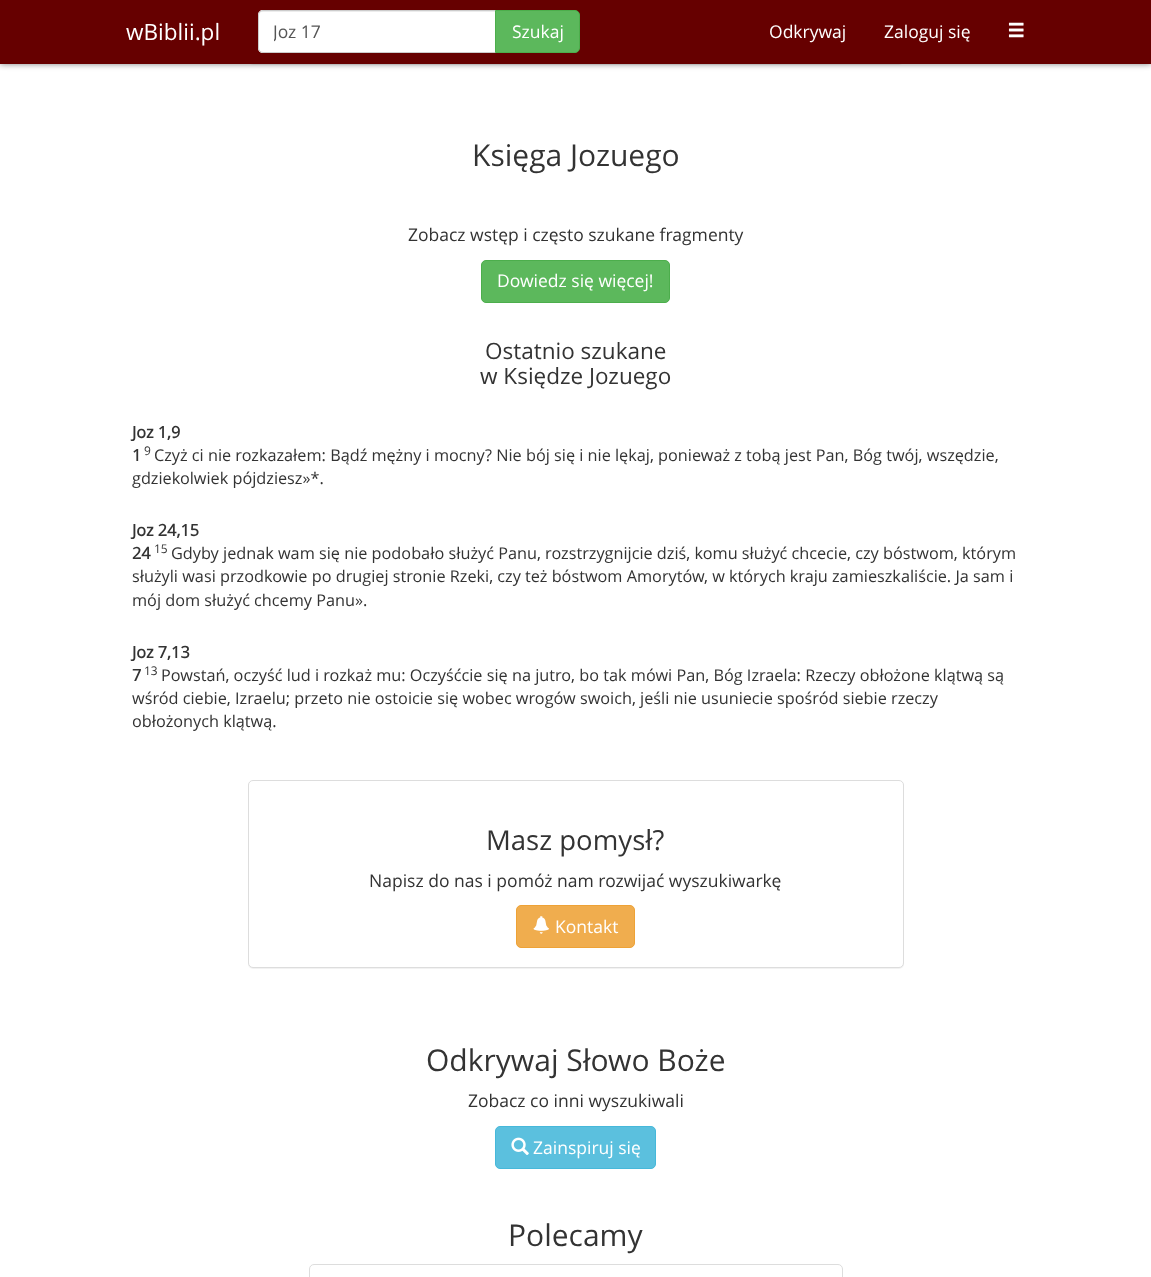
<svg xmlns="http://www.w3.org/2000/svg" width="1151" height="1277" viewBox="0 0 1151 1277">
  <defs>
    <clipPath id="clip1"><path d="M274 20h206v24H274z"/></clipPath>
  </defs>
  <rect width="100%" height="100%" fill="#fff"/>
  <path d="M0 0h1151v64H0z" fill="#00000080" filter="blur(3px)"/>
  <rect x="248" y="-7" width="656" height="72" rx="5" fill="#0000000d" filter="blur(0.5px)"/>
  <path d="M0 0h1151v64H0z" fill="#600"/>
  <path d="M263 10H496V53H263C260 53 258 51 258 48V15C258 12 260 10 263 10Z" fill="#fff"/>
  <path d="M262 12H495V11H263C260 11 259 13 259 16C259 14 260 12 262 12Z" fill="#ececec"/>
  <path d="M263 10.5H495.5V52.5H263C260.5 52.5 258.5 50.5 258.5 48V15C258.5 12.5 260.5 10.5 263 10.5Z" fill="none" stroke="#ccc"/>
  <path d="M495.5 10.5H575C577.5 10.5 579.5 12.5 579.5 15V48C579.5 50.5 577.5 52.5 575 52.5H495.5Z" fill="#5cb85c" stroke="#4cae4c"/>
  <image x="1008" y="22" width="16" height="16" href="img/1.png"/>
  <rect x="481.5" y="260.5" width="188" height="42" rx="4.5" fill="#5cb85c" stroke="#4cae4c"/>
  <rect x="248" y="781" width="656" height="188" rx="5" fill="#0000000d" filter="blur(0.5px)"/>
  <rect x="248.5" y="780.5" width="655" height="187" rx="4.5" fill="#fff" stroke="#ddd"/>
  <rect x="516.5" y="905.5" width="118" height="42" rx="4.5" fill="#f0ad4e" stroke="#eea236"/>
  <image x="533" y="916" width="16" height="18" href="img/2.png"/>
  <rect x="495.5" y="1126.5" width="160" height="42" rx="4.5" fill="#5bc0de" stroke="#46b8da"/>
  <image x="511" y="1137" width="18" height="18" href="img/3.png"/>
  <rect x="309.5" y="1264.5" width="533" height="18" rx="4.5" fill="none" stroke="#ddd"/>
  <text x="126" y="40" font-family="Open Sans" font-size="22.5" fill="#fff">wBiblii.pl</text>
  <g clip-path="url(#clip1)">
    <text x="273" y="38" font-family="Open Sans" font-size="17.5" fill="#555">Joz 17</text>
  </g>
  <g font-family="Open Sans" font-size="17.5" fill="#fff">
    <text x="512" y="38">Szukaj</text>
    <text x="769" y="38">Odkrywaj</text>
    <text x="884" y="38">Zaloguj się</text>
  </g>
  <text x="472" y="166" font-family="Open Sans" font-size="30" fill="#333">Księga Jozuego</text>
  <text x="408" y="241" font-family="Open Sans" font-size="17.5" fill="#333">Zobacz wstęp i często szukane fragmenty</text>
  <text x="497" y="287" font-family="Open Sans" font-size="17.5" fill="#fff">Dowiedz się więcej!</text>
  <g font-family="Open Sans" font-size="22.5" fill="#333">
    <text x="485" y="359">Ostatnio szukane</text>
    <text x="480" y="384">w Księdze Jozuego</text>
  </g>
  <g font-family="Open Sans" font-size="16.25" font-weight="bold" fill="#333">
    <text x="132" y="438">Joz 1,9</text>
    <text x="132" y="461">1</text>
  </g>
  <text x="144" y="455" font-family="Open Sans" font-size="12" fill="#333">9</text>
  <g font-family="Open Sans" font-size="16.25" fill="#333">
    <text x="154" y="461">Czyż ci nie rozkazałem: Bądź mężny i mocny? Nie bój się i nie lękaj, ponieważ z tobą jest Pan, Bóg twój, wszędzie,</text>
    <text x="132" y="484">gdziekolwiek pójdziesz»*.</text>
  </g>
  <g font-family="Open Sans" font-size="16.25" font-weight="bold" fill="#333">
    <text x="132" y="536">Joz 24,15</text>
    <text x="132" y="559">24</text>
  </g>
  <text x="154" y="553" font-family="Open Sans" font-size="12" fill="#333">15</text>
  <g font-family="Open Sans" font-size="16.25" fill="#333">
    <text x="171" y="559">Gdyby jednak wam się nie podobało służyć Panu, rozstrzygnijcie dziś, komu służyć chcecie, czy bóstwom, którym</text>
    <text x="132" y="582">służyli wasi przodkowie po drugiej stronie Rzeki, czy też bóstwom Amorytów, w których kraju zamieszkaliście. Ja sam i</text>
    <text x="132" y="606">mój dom służyć chcemy Panu».</text>
  </g>
  <g font-family="Open Sans" font-size="16.25" font-weight="bold" fill="#333">
    <text x="132" y="658">Joz 7,13</text>
    <text x="132" y="681">7</text>
  </g>
  <text x="144" y="675" font-family="Open Sans" font-size="12" fill="#333">13</text>
  <g font-family="Open Sans" font-size="16.25" fill="#333">
    <text x="161" y="681">Powstań, oczyść lud i rozkaż mu: Oczyśćcie się na jutro, bo tak mówi Pan, Bóg Izraela: Rzeczy obłożone klątwą są</text>
    <text x="132" y="704">wśród ciebie, Izraelu; przeto nie ostoicie się wobec wrogów swoich, jeśli nie usuniecie spośród siebie rzeczy</text>
    <text x="132" y="727">obłożonych klątwą.</text>
  </g>
  <text x="486" y="850" font-family="Open Sans" font-size="27.5" fill="#333">Masz pomysł?</text>
  <text x="369" y="887" font-family="Open Sans" font-size="17.5" fill="#333">Napisz do nas i pomóż nam rozwijać wyszukiwarkę</text>
  <text x="555" y="933" font-family="Open Sans" font-size="17.5" fill="#fff">Kontakt</text>
  <text x="426" y="1071" font-family="Open Sans" font-size="30" fill="#333">Odkrywaj Słowo Boże</text>
  <text x="468" y="1107" font-family="Open Sans" font-size="17.5" fill="#333">Zobacz co inni wyszukiwali</text>
  <text x="533" y="1154" font-family="Open Sans" font-size="17.5" fill="#fff">Zainspiruj się</text>
  <text x="508" y="1246" font-family="Open Sans" font-size="30" fill="#333">Polecamy</text>
</svg>
